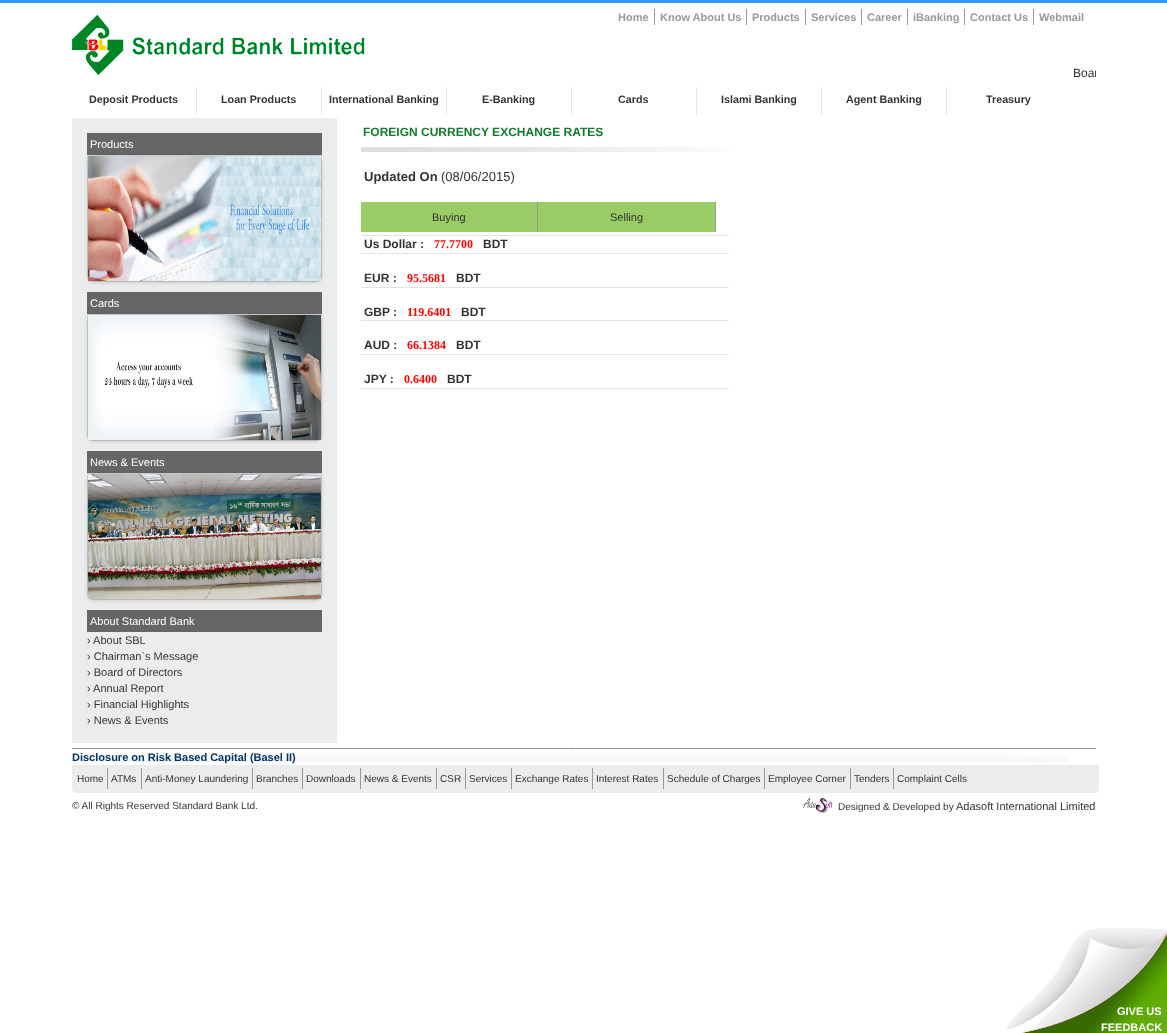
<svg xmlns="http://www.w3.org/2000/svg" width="1167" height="1033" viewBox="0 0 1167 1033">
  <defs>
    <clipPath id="clip1"><path d="M379 65h717v16H379z"/></clipPath>
  </defs>
  <rect width="100%" height="100%" fill="#fff"/>
  <path d="M0 0h1167v3H0z" fill="#39f"/>
  <image x="72" y="15" width="293" height="60" href="img/1.png"/>
  <path d="M654 9h1v16H654z" fill="#999"/>
  <path d="M746 9h1v16H746z" fill="#999"/>
  <path d="M805 9h1v16H805z" fill="#999"/>
  <path d="M861 9h1v16H861z" fill="#999"/>
  <path d="M907 9h1v16H907z" fill="#999"/>
  <path d="M964 9h1v16H964z" fill="#999"/>
  <path d="M1033 9h1v16H1033z" fill="#999"/>
  <path d="M196 87h1v29H196z" fill="#e6e6e6"/>
  <path d="M321 87h1v29H321z" fill="#e6e6e6"/>
  <path d="M446 87h1v29H446z" fill="#e6e6e6"/>
  <path d="M571 87h1v29H571z" fill="#e6e6e6"/>
  <path d="M696 87h1v29H696z" fill="#e6e6e6"/>
  <path d="M821 87h1v29H821z" fill="#e6e6e6"/>
  <path d="M946 87h1v29H946z" fill="#e6e6e6"/>
  <path d="M72 118h265v625H72z" fill="#ebecec"/>
  <path d="M87 133h235v22H87z" fill="#666"/>
  <path d="M87.5 155.5H321.5V277C321.5 279.5 319.5 281.5 317 281.5H92C89.5 281.5 87.5 279.5 87.5 277Z" fill="none" stroke="#d1d1d1"/>
  <rect x="88" y="157" width="233" height="125" rx="6" fill="#00000033" filter="blur(2px)"/>
  <image x="88" y="156" width="233" height="125" href="img/2.png"/>
  <path d="M87 292h235v22H87z" fill="#666"/>
  <path d="M87.5 314.5H321.5V436C321.5 438.5 319.5 440.5 317 440.5H92C89.5 440.5 87.5 438.5 87.5 436Z" fill="none" stroke="#d1d1d1"/>
  <rect x="88" y="316" width="233" height="125" rx="6" fill="#00000033" filter="blur(2px)"/>
  <image x="88" y="315" width="233" height="125" href="img/3.png"/>
  <path d="M87 451h235v22H87z" fill="#666"/>
  <path d="M87.5 473.5H321.5V595C321.5 597.5 319.5 599.5 317 599.5H92C89.5 599.5 87.5 597.5 87.5 595Z" fill="none" stroke="#d1d1d1"/>
  <rect x="88" y="475" width="233" height="125" rx="6" fill="#00000033" filter="blur(2px)"/>
  <image x="87" y="474" width="234" height="125" href="img/4.png"/>
  <path d="M87 610h235v22H87z" fill="#666"/>
  <image x="361" y="147" width="369" height="5" href="img/5.png"/>
  <path d="M361 202h176v30H361z" fill="#9c6"/>
  <path d="M537 202h1v30H537z" fill="#999"/>
  <path d="M538 202h177v30H538z" fill="#9c6"/>
  <path d="M715 202h1v30H715z" fill="#999"/>
  <path d="M361 235h368v1H361z" fill="#e4e4e4"/>
  <path d="M361 253h368v1H361z" fill="#e4e4e4"/>
  <path d="M361 287h368v1H361z" fill="#e4e4e4"/>
  <path d="M361 320h368v1H361z" fill="#e4e4e4"/>
  <path d="M361 354h368v1H361z" fill="#e4e4e4"/>
  <path d="M361 388h368v1H361z" fill="#e4e4e4"/>
  <image x="81" y="749" width="988" height="13" href="img/6.png"/>
  <path d="M72 748h1024v1H72z" fill="#999"/>
  <path d="M72 765H1099V788C1099 791 1097 793 1094 793H77C74 793 72 791 72 788Z" fill="#ebecec"/>
  <path d="M107 768h1v21H107z" fill="#999"/>
  <path d="M141 768h1v21H141z" fill="#999"/>
  <path d="M252 768h1v21H252z" fill="#999"/>
  <path d="M302 768h1v21H302z" fill="#999"/>
  <path d="M360 768h1v21H360z" fill="#999"/>
  <path d="M436 768h1v21H436z" fill="#999"/>
  <path d="M465 768h1v21H465z" fill="#999"/>
  <path d="M511 768h1v21H511z" fill="#999"/>
  <path d="M592 768h1v21H592z" fill="#999"/>
  <path d="M663 768h1v21H663z" fill="#999"/>
  <path d="M764 768h1v21H764z" fill="#999"/>
  <path d="M850 768h1v21H850z" fill="#999"/>
  <path d="M893 768h1v21H893z" fill="#999"/>
  <image x="803" y="798" width="30" height="15" href="img/7.png"/>
  <image x="1006" y="928" width="161" height="105" href="img/8.png"/>
  <g font-family="Liberation Sans" font-size="11" font-weight="bold" fill="#999">
    <text x="618" y="21">Home</text>
    <text x="660" y="21">Know About Us</text>
    <text x="752" y="21">Products</text>
    <text x="811" y="21">Services</text>
    <text x="867" y="21">Career</text>
    <text x="913" y="21">iBanking</text>
    <text x="970" y="21">Contact Us</text>
    <text x="1039" y="21">Webmail</text>
  </g>
  <g clip-path="url(#clip1)">
    <text x="1073" y="77" font-family="Liberation Sans" font-size="12" fill="#333">Boar</text>
  </g>
  <g font-family="Liberation Sans" font-size="10.75" font-weight="bold" fill="#333">
    <text x="89" y="103">Deposit Products</text>
    <text x="221" y="103">Loan Products</text>
    <text x="329" y="103">International Banking</text>
    <text x="482" y="103">E-Banking</text>
    <text x="618" y="103">Cards</text>
    <text x="721" y="103">Islami Banking</text>
    <text x="846" y="103">Agent Banking</text>
    <text x="986" y="103">Treasury</text>
  </g>
  <g font-family="Liberation Sans" font-size="11" fill="#fff">
    <text x="90" y="148">Products</text>
    <text x="90" y="307">Cards</text>
    <text x="90" y="466">News &amp; Events</text>
    <text x="90" y="625">About Standard Bank</text>
  </g>
  <g font-family="Liberation Sans" font-size="11" fill="#333">
    <text x="87" y="644">› About SBL</text>
    <text x="87" y="660">› Chairman`s Message</text>
    <text x="87" y="676">› Board of Directors</text>
    <text x="87" y="692">› Annual Report</text>
    <text x="87" y="708">› Financial Highlights</text>
    <text x="87" y="724">› News &amp; Events</text>
  </g>
  <text x="363" y="136" font-family="Liberation Sans" font-size="12" font-weight="bold" fill="#137a2f">FOREIGN CURRENCY EXCHANGE RATES</text>
  <text x="364" y="181" font-family="Liberation Sans" font-size="13" font-weight="bold" fill="#333">Updated On</text>
  <text x="441" y="181" font-family="Liberation Sans" font-size="13" fill="#333">(08/06/2015)</text>
  <g font-family="Liberation Sans" font-size="11" fill="#333">
    <text x="432" y="221">Buying</text>
    <text x="610" y="221">Selling</text>
  </g>
  <text x="364" y="248" font-family="Liberation Sans" font-size="12" font-weight="bold" fill="#333">Us Dollar :</text>
  <text x="434" y="248" font-family="Liberation Serif" font-size="12" font-weight="bold" fill="#f00">77.7700</text>
  <g font-family="Liberation Sans" font-size="12" font-weight="bold" fill="#333">
    <text x="483" y="248">BDT</text>
    <text x="364" y="282">EUR :</text>
  </g>
  <text x="407" y="282" font-family="Liberation Serif" font-size="12" font-weight="bold" fill="#f00">95.5681</text>
  <g font-family="Liberation Sans" font-size="12" font-weight="bold" fill="#333">
    <text x="456" y="282">BDT</text>
    <text x="364" y="316">GBP :</text>
  </g>
  <text x="407" y="316" font-family="Liberation Serif" font-size="12" font-weight="bold" fill="#f00">119.6401</text>
  <g font-family="Liberation Sans" font-size="12" font-weight="bold" fill="#333">
    <text x="461" y="316">BDT</text>
    <text x="364" y="349">AUD :</text>
  </g>
  <text x="407" y="349" font-family="Liberation Serif" font-size="12" font-weight="bold" fill="#f00">66.1384</text>
  <g font-family="Liberation Sans" font-size="12" font-weight="bold" fill="#333">
    <text x="456" y="349">BDT</text>
    <text x="364" y="383">JPY :</text>
  </g>
  <text x="404" y="383" font-family="Liberation Serif" font-size="12" font-weight="bold" fill="#f00">0.6400</text>
  <text x="447" y="383" font-family="Liberation Sans" font-size="12" font-weight="bold" fill="#333">BDT</text>
  <text x="72" y="761" font-family="Liberation Sans" font-size="11" font-weight="bold" fill="#036">Disclosure on Risk Based Capital (Basel II)</text>
  <g font-family="Liberation Sans" font-size="10" fill="#333">
    <text x="77" y="782">Home</text>
    <text x="111" y="782">ATMs</text>
    <text x="145" y="782">Anti-Money Laundering</text>
    <text x="256" y="782">Branches</text>
    <text x="306" y="782">Downloads</text>
    <text x="364" y="782">News &amp; Events</text>
    <text x="440" y="782">CSR</text>
    <text x="469" y="782">Services</text>
    <text x="515" y="782">Exchange Rates</text>
    <text x="596" y="782">Interest Rates</text>
    <text x="667" y="782">Schedule of Charges</text>
    <text x="768" y="782">Employee Corner</text>
    <text x="854" y="782">Tenders</text>
    <text x="897" y="782">Complaint Cells</text>
    <text x="72" y="809">© All Rights Reserved Standard Bank Ltd.</text>
    <text x="838" y="810">Designed &amp; Developed by</text>
  </g>
  <text x="956" y="810" font-family="Liberation Sans" font-size="11" fill="#333">Adasoft International Limited</text>
  <g font-family="Liberation Sans" font-size="11" font-weight="bold" fill="#fff">
    <text x="1117" y="1015">GIVE US</text>
    <text x="1101" y="1031">FEEDBACK</text>
  </g>
</svg>
